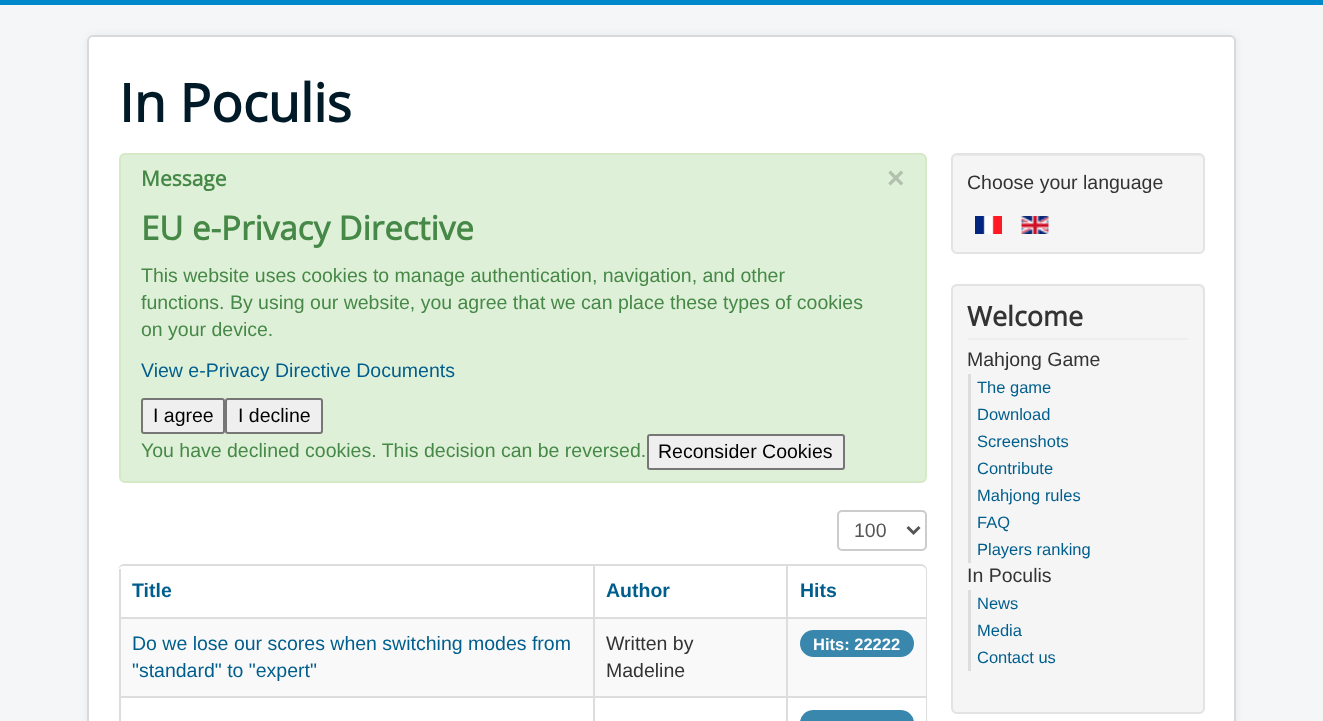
<svg xmlns="http://www.w3.org/2000/svg" width="1323" height="721" viewBox="0 0 1323 721">
  <rect width="100%" height="100%" fill="#f4f6f7"/>
  <path d="M0 0h1323v5H0z" fill="#08c"/>
  <rect x="87" y="35" width="1149" height="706" rx="6" fill="#0000000d" filter="blur(4.5px)"/>
  <rect x="87" y="35" width="1149" height="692" rx="6" fill="#fff"/>
  <rect x="88" y="36" width="1147" height="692" rx="5" fill="none" stroke="#00000026" stroke-width="2"/>
  <rect x="120" y="154" width="806" height="328" rx="5" fill="#dff0d8" stroke="#d6e9c6" stroke-width="2"/>
  <rect x="142" y="399" width="82" height="34" rx="2" fill="#efefef" stroke="#767676" stroke-width="2"/>
  <rect x="226" y="399" width="96" height="34" rx="2" fill="#efefef" stroke="#767676" stroke-width="2"/>
  <rect x="648" y="435" width="196" height="34" rx="2" fill="#efefef" stroke="#767676" stroke-width="2"/>
  <rect x="838" y="511" width="88" height="39" rx="4" fill="none" stroke="#ccc" stroke-width="2"/>
  <path d="M907.5 527L913.5 533L919.5 527" fill="none" stroke="#555" stroke-width="3"/>
  <path d="M124 564H921C924 564 927 567 927 570V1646C927 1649 924 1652 921 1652H124C121 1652 118 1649 118 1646V570C118 567 121 564 124 564ZM124 566H921C923 566 926 568 926 570V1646C926 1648 923 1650 921 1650H124C121 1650 118 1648 118 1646V570C118 568 121 566 124 566Z" fill="#ddd" fill-rule="evenodd"/>
  <path d="M119 569h2v48H119z" fill="#ddd"/>
  <path d="M593 566h2v51H593z" fill="#ddd"/>
  <path d="M786 566h2v51H786z" fill="#ddd"/>
  <path d="M121 619h472v77H121z" fill="#f9f9f9"/>
  <path d="M119 617h807v2H119z" fill="#ddd"/>
  <path d="M119 617h2v79H119z" fill="#ddd"/>
  <path d="M595 619h191v77H595z" fill="#f9f9f9"/>
  <path d="M593 617h2v79H593z" fill="#ddd"/>
  <path d="M788 619h138v77H788z" fill="#f9f9f9"/>
  <path d="M786 617h2v79H786z" fill="#ddd"/>
  <rect x="800" y="630" width="114" height="27" rx="13.5" fill="#3a87ad"/>
  <path d="M119 696h807v2H119z" fill="#ddd"/>
  <path d="M119 696h2v25H119z" fill="#ddd"/>
  <path d="M593 696h2v25H593z" fill="#ddd"/>
  <path d="M786 696h2v25H786z" fill="#ddd"/>
  <rect x="800" y="710" width="114" height="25" rx="13.5" fill="#3a87ad"/>
  <rect x="951" y="153" width="254" height="101" rx="6" fill="#f5f5f5"/>
  <path d="M957 156H1198C1201 156 1203 158 1203 160C1203 157 1201 155 1198 155H958C956 155 955 156 954 157Z" fill="#e9e9e9"/>
  <rect x="952" y="154" width="252" height="99" rx="5" fill="none" stroke="#e3e3e3" stroke-width="2"/>
  <image x="975" y="216" width="27" height="18" href="img/1.png"/>
  <image x="1021" y="216" width="28" height="18" href="img/2.png"/>
  <rect x="951" y="284" width="254" height="430" rx="6" fill="#f5f5f5"/>
  <path d="M957 286H1198C1201 286 1203 289 1203 291V290C1203 287 1201 285 1198 285H958C956 285 954 286 953 288C954 287 956 286 957 286Z" fill="#e9e9e9"/>
  <rect x="952" y="285" width="252" height="428" rx="5" fill="none" stroke="#e3e3e3" stroke-width="2"/>
  <path d="M968 338h220v2H968z" fill="#eee"/>
  <path d="M968 374h3v189H968z" fill="#ddd"/>
  <path d="M968 590h3v81H968z" fill="#ddd"/>
  <text x="119" y="122" font-family="Open Sans" font-size="52.5" font-weight="bold" fill="#001a27">In Poculis</text>
  <text x="141" y="186" font-family="Open Sans" font-size="21" font-weight="bold" fill="#468847">Message</text>
  <text x="887" y="188" font-family="Liberation Sans" font-size="30" font-weight="bold" fill="#b2c0ad">×</text>
  <text x="141" y="240" font-family="Open Sans" font-size="33" font-weight="bold" fill="#468847">EU e-Privacy Directive</text>
  <g font-family="Liberation Sans" font-size="19.5" fill="#468847">
    <text x="141" y="282">This website uses cookies to manage authentication, navigation, and other</text>
    <text x="141" y="309">functions. By using our website, you agree that we can place these types of cookies</text>
    <text x="141" y="336">on your device.</text>
  </g>
  <text x="141" y="377" font-family="Liberation Sans" font-size="19.5" fill="#005e8d">View e-Privacy Directive Documents</text>
  <g font-family="Liberation Sans" font-size="19.5" fill="#000">
    <text x="153" y="422">I agree</text>
    <text x="238" y="422">I decline</text>
  </g>
  <text x="141" y="457" font-family="Liberation Sans" font-size="19.5" fill="#468847">You have declined cookies. This decision can be reversed.</text>
  <text x="658" y="458" font-family="Liberation Sans" font-size="19.5" fill="#000">Reconsider Cookies</text>
  <text x="854" y="537" font-family="Liberation Sans" font-size="19.5" fill="#555">100</text>
  <g font-family="Liberation Sans" font-size="19.5" font-weight="bold" fill="#005e8d">
    <text x="132" y="597">Title</text>
    <text x="606" y="597">Author</text>
    <text x="800" y="597">Hits</text>
  </g>
  <g font-family="Liberation Sans" font-size="19.5" fill="#005e8d">
    <text x="132" y="650">Do we lose our scores when switching modes from</text>
    <text x="132" y="677">"standard" to "expert"</text>
  </g>
  <g font-family="Liberation Sans" font-size="19.5" fill="#333">
    <text x="606" y="650">Written by</text>
    <text x="606" y="677">Madeline</text>
  </g>
  <text x="813" y="650" font-family="Liberation Sans" font-size="16.5" font-weight="bold" fill="#fff">Hits: 22222</text>
  <text x="967" y="189" font-family="Liberation Sans" font-size="19.5" fill="#333">Choose your language</text>
  <text x="967" y="326" font-family="Open Sans" font-size="27" font-weight="bold" fill="#333">Welcome</text>
  <text x="967" y="366" font-family="Liberation Sans" font-size="19.5" fill="#333">Mahjong Game</text>
  <g font-family="Liberation Sans" font-size="16.5" fill="#005e8d">
    <text x="977" y="393">The game</text>
    <text x="977" y="420">Download</text>
    <text x="977" y="447">Screenshots</text>
    <text x="977" y="474">Contribute</text>
    <text x="977" y="501">Mahjong rules</text>
    <text x="977" y="528">FAQ</text>
    <text x="977" y="555">Players ranking</text>
  </g>
  <text x="967" y="582" font-family="Liberation Sans" font-size="19.5" fill="#333">In Poculis</text>
  <g font-family="Liberation Sans" font-size="16.5" fill="#005e8d">
    <text x="977" y="609">News</text>
    <text x="977" y="636">Media</text>
    <text x="977" y="663">Contact us</text>
  </g>
</svg>
